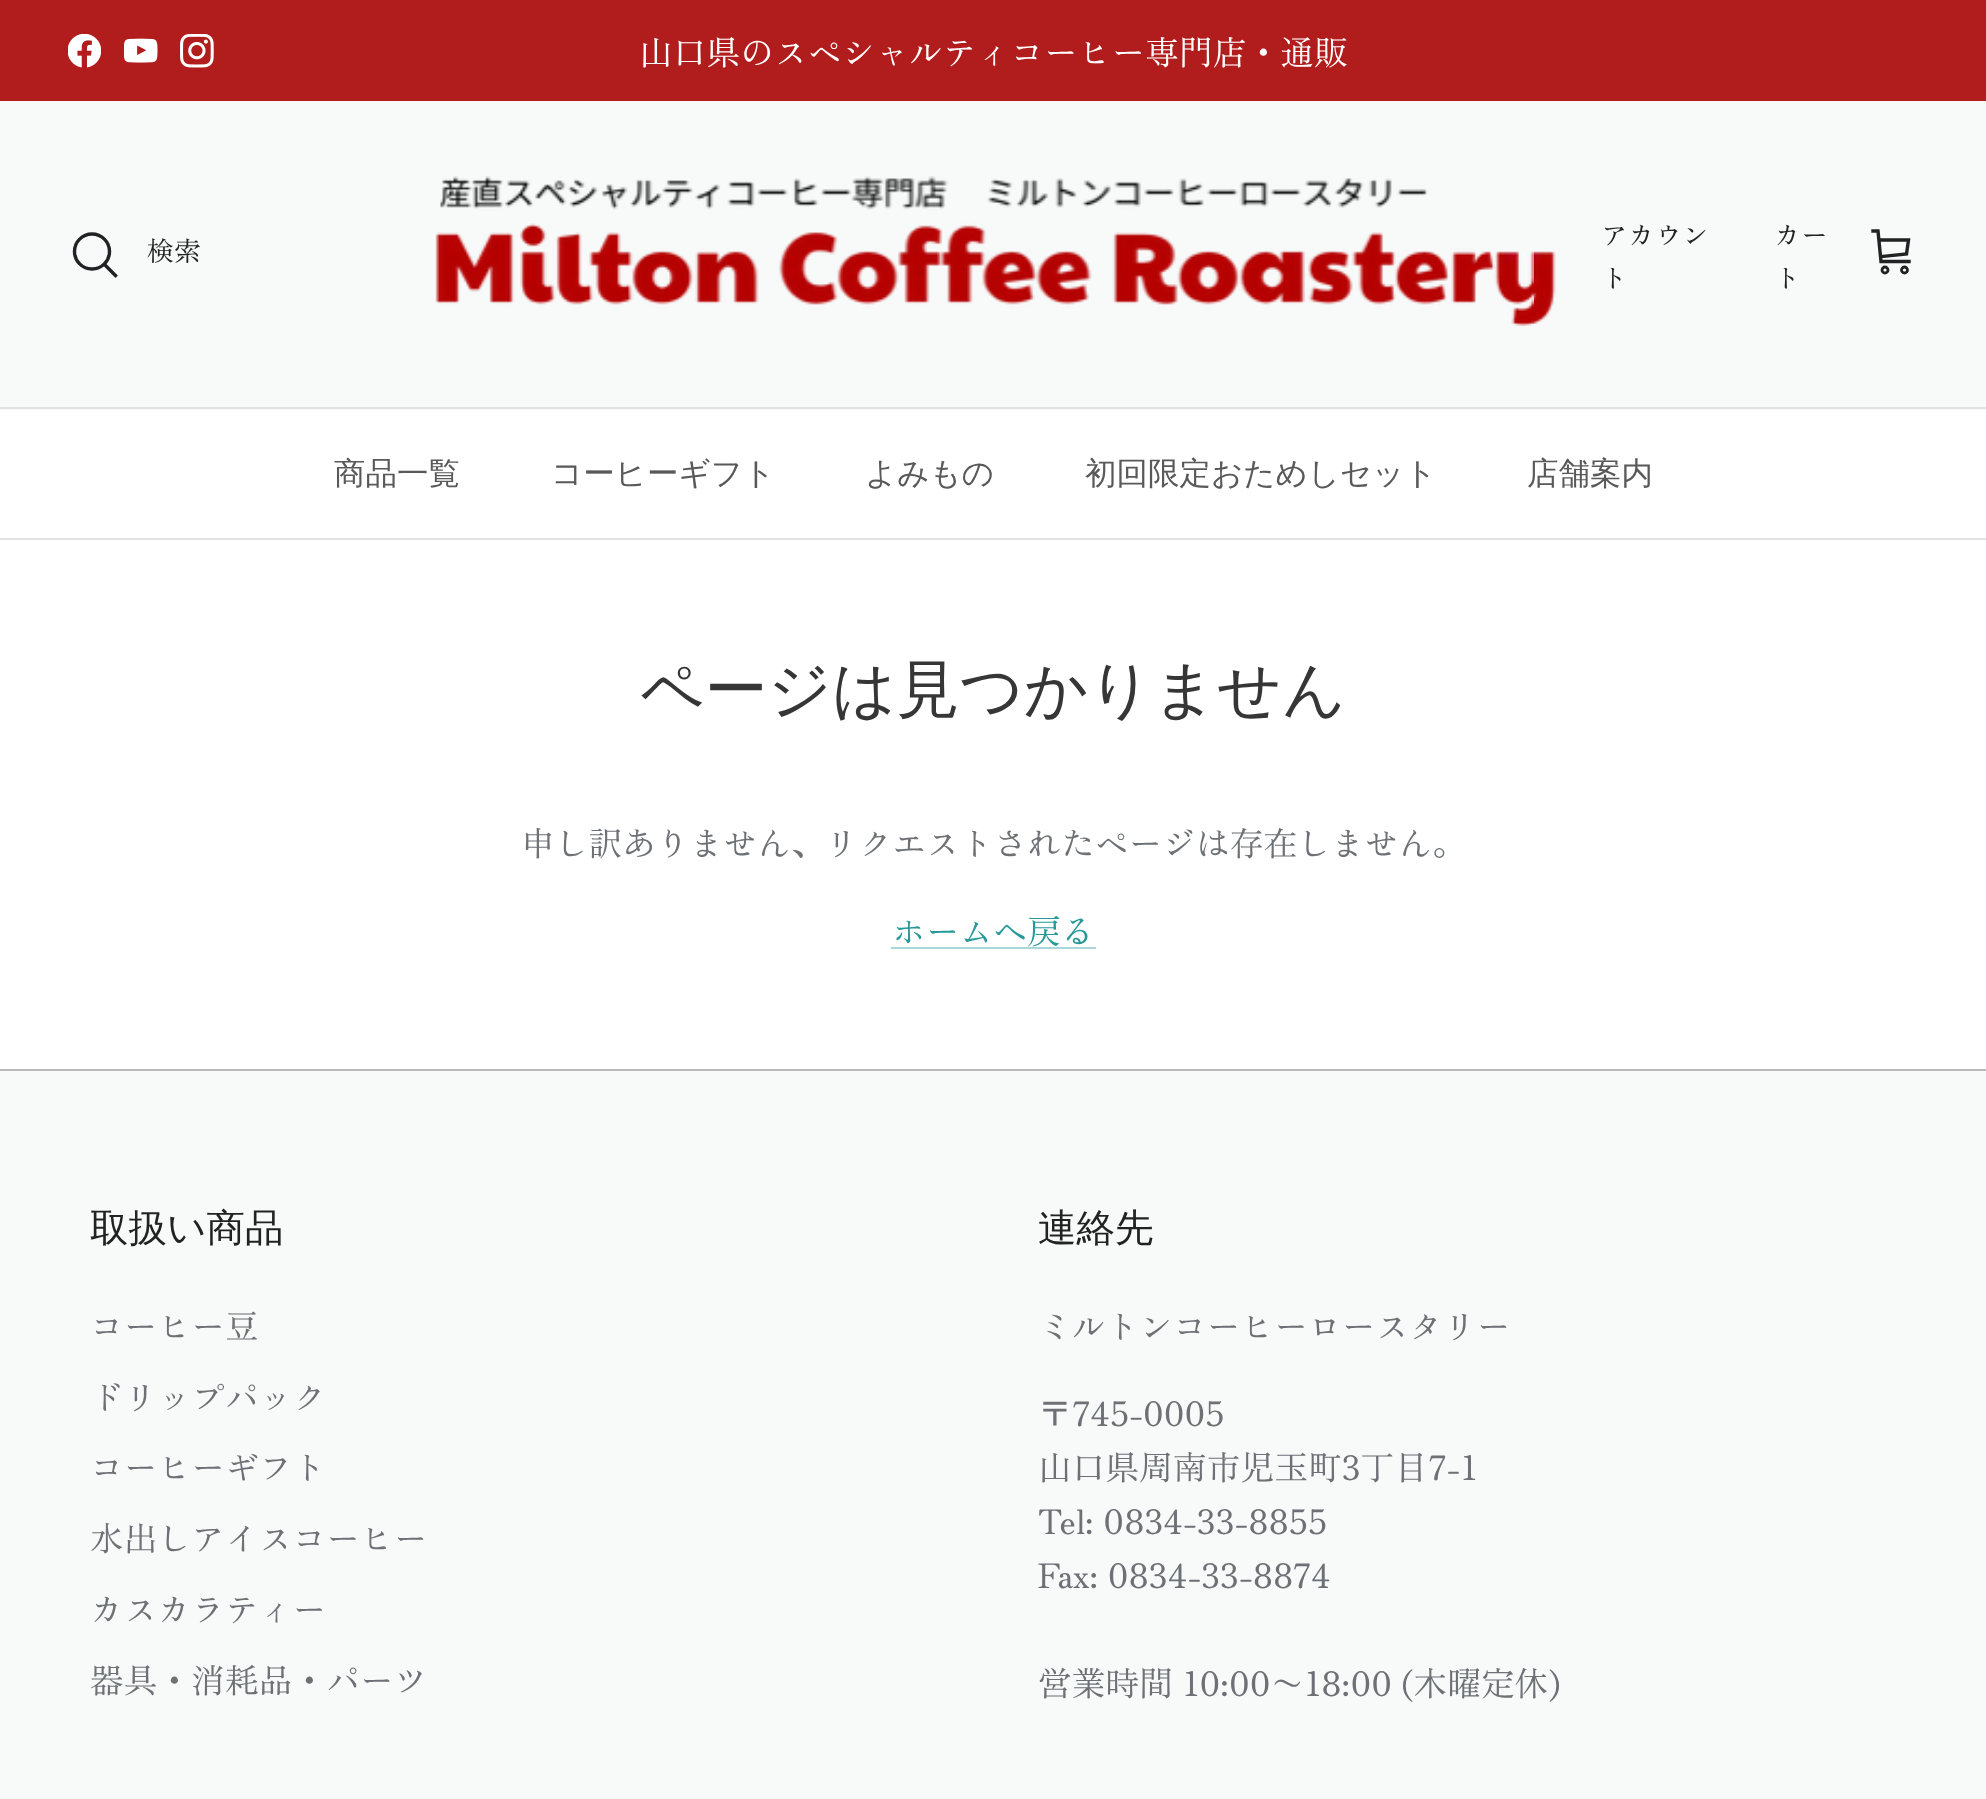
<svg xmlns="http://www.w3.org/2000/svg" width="1986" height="1799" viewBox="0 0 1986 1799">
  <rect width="100%" height="100%" fill="#fff"/>
  <path d="M0 0h1986v101H0z" fill="#b11c1c"/>
  <image x="68" y="34" width="33" height="34" href="img/1.png"/>
  <image x="124" y="38" width="34" height="25" href="img/2.png"/>
  <image x="180" y="34" width="34" height="34" href="img/3.png"/>
  <path d="M0 101h1986v309H0z" fill="#f8fafa"/>
  <path d="M0 407h1986v2H0z" fill="#e2e2e2"/>
  <circle cx="92" cy="251.5" r="17.5" fill="none" stroke="#202223" stroke-width="3.4"/>
  <path d="M105.5 265.5L115.5 275.5" fill="none" stroke="#202223" stroke-width="3.4" stroke-linecap="square"/>
  <image x="435" y="176" width="1121" height="150" href="img/4.png"/>
  <path d="M1873 231H1878L1881 261.5H1909M1879.5 240H1908.5L1906.5 254L1882.5 256.5" fill="none" stroke="#202223" stroke-width="3.4" stroke-linecap="square"/>
  <circle cx="1885" cy="270" r="3" fill="none" stroke="#202223" stroke-width="2.8"/>
  <circle cx="1904.5" cy="270" r="3" fill="none" stroke="#202223" stroke-width="2.8"/>
  <path d="M0 538h1986v2H0z" fill="#e2e2e2"/>
  <path d="M891 947h205v2H891z" fill="#a9d6d6"/>
  <path d="M0 1071h1986v728H0z" fill="#f8fafa"/>
  <path d="M0 1069h1986v2H0z" fill="#b8b8b8"/>
  <text x="639" y="65" font-family="Zen Old Mincho" font-size="33.75" fill="#fff">山口県のスペシャルティコーヒー専門店・通販</text>
  <g font-family="Zen Old Mincho" font-size="27" fill="#222">
    <text x="147" y="261">検索</text>
    <text x="1601" y="245">アカウン</text>
    <text x="1601" y="288">ト</text>
    <text x="1774" y="245">カー</text>
    <text x="1774" y="288">ト</text>
  </g>
  <g font-family="WenQuanYi Zen Hei" font-size="31.5" font-weight="500" fill="#595959">
    <text x="334" y="484">商品一覧</text>
    <text x="551" y="484">コーヒーギフト</text>
    <text x="865" y="484">よみもの</text>
    <text x="1085" y="484">初回限定おためしセット</text>
    <text x="1527" y="484">店舗案内</text>
  </g>
  <text x="640" y="711" font-family="WenQuanYi Zen Hei" font-size="63" font-weight="500" fill="#363636">ページは見つかりません</text>
  <text x="521" y="856" font-family="Zen Old Mincho" font-size="33.75" fill="#6d7175">申し訳ありません、リクエストされたページは存在しません。</text>
  <text x="892" y="944" font-family="Zen Old Mincho" font-size="33.75" fill="#279999">ホームへ戻る</text>
  <text x="90" y="1241" font-family="WenQuanYi Zen Hei" font-size="38.5" font-weight="500" fill="#222">取扱い商品</text>
  <g font-family="Zen Old Mincho" font-size="33.75" fill="#6d7175">
    <text x="90" y="1339">コーヒー豆</text>
    <text x="90" y="1410">ドリップパック</text>
    <text x="90" y="1480">コーヒーギフト</text>
    <text x="90" y="1551">水出しアイスコーヒー</text>
    <text x="90" y="1622">カスカラティー</text>
    <text x="90" y="1693">器具・消耗品・パーツ</text>
  </g>
  <text x="1038" y="1241" font-family="WenQuanYi Zen Hei" font-size="38.5" font-weight="500" fill="#222">連絡先</text>
  <g font-family="Zen Old Mincho" font-size="33.75" fill="#6d7175">
    <text x="1038" y="1339">ミルトンコーヒーロースタリー</text>
    <text x="1038" y="1426">〒745-0005</text>
    <text x="1038" y="1480">山口県周南市児玉町3丁目7-1</text>
    <text x="1038" y="1534">Tel: 0834-33-8855</text>
    <text x="1038" y="1588">Fax: 0834-33-8874</text>
    <text x="1038" y="1696">営業時間 10:00〜18:00 (木曜定休)</text>
  </g>
</svg>
